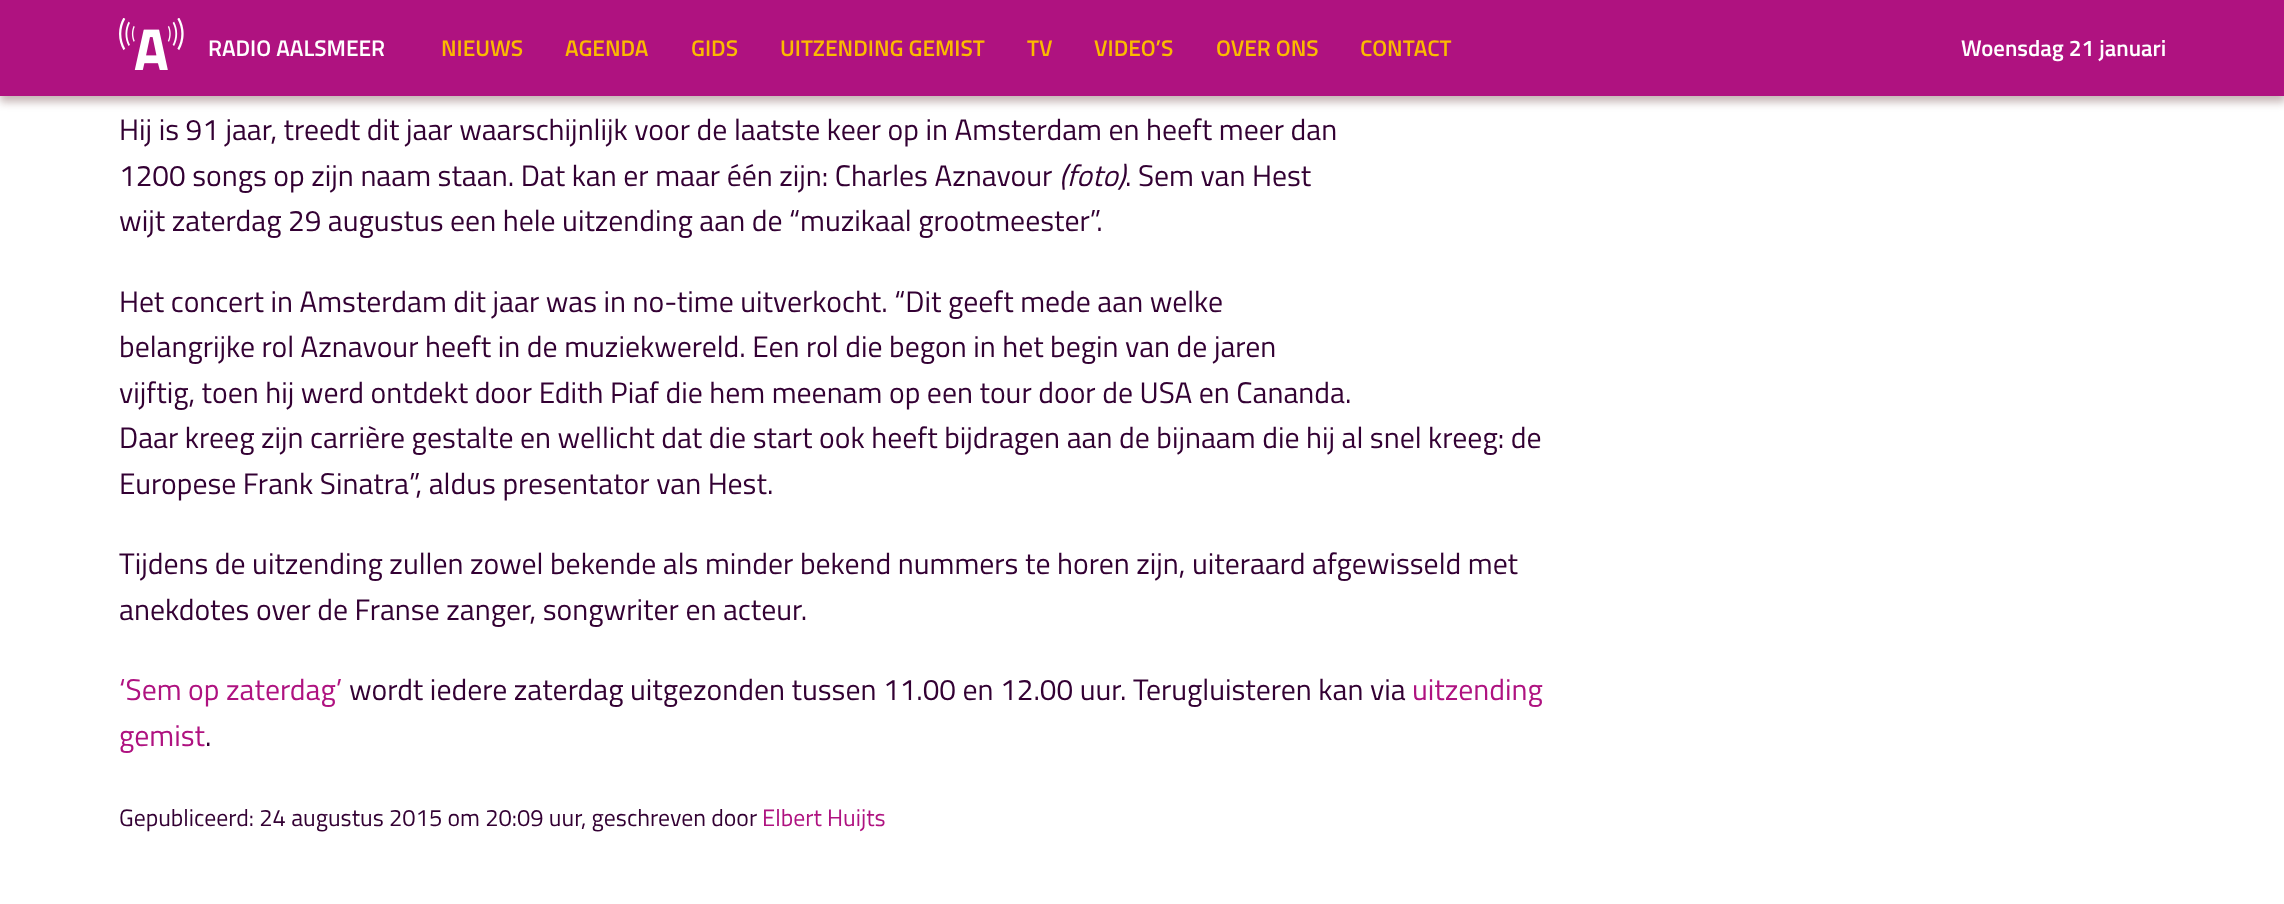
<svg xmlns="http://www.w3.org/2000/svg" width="2284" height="904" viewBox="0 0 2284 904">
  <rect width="100%" height="100%" fill="#fff"/>
  <path d="M0 5h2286v97H0z" fill="#430b0a4d" filter="blur(4.5px)"/>
  <path d="M0 0h2284v96H0z" fill="#af1280"/>
  <image x="119" y="18" width="65" height="52" href="img/1.png"/>
  <text x="208" y="56" font-family="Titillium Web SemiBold" font-size="22.75" font-weight="600" fill="#fff">RADIO AALSMEER</text>
  <g font-family="Titillium Web SemiBold" font-size="22.75" font-weight="600" fill="#fbba00">
    <text x="441" y="56">NIEUWS</text>
    <text x="565" y="56">AGENDA</text>
    <text x="691" y="56">GIDS</text>
    <text x="780" y="56">UITZENDING GEMIST</text>
    <text x="1027" y="56">TV</text>
    <text x="1094" y="56">VIDEO’S</text>
    <text x="1216" y="56">OVER ONS</text>
    <text x="1360" y="56">CONTACT</text>
  </g>
  <text x="1961" y="56" font-family="Titillium Web SemiBold" font-size="22.75" font-weight="600" fill="#fff">Woensdag 21 januari</text>
  <g font-family="Titillium Web" font-size="29.75" fill="#303">
    <text x="119" y="140">Hij is 91 jaar, treedt dit jaar waarschijnlijk voor de laatste keer op in Amsterdam en heeft meer dan</text>
    <text x="119" y="186">1200 songs op zijn naam staan. Dat kan er maar één zijn: Charles Aznavour</text>
  </g>
  <text x="1059" y="186" font-family="Titillium Web" font-size="29.75" font-style="italic" fill="#303">(foto)</text>
  <g font-family="Titillium Web" font-size="29.75" fill="#303">
    <text x="1125" y="186">. Sem van Hest</text>
    <text x="119" y="231">wijt zaterdag 29 augustus een hele uitzending aan de “muzikaal grootmeester”.</text>
    <text x="119" y="312">Het concert in Amsterdam dit jaar was in no-time uitverkocht. “Dit geeft mede aan welke</text>
    <text x="119" y="357">belangrijke rol Aznavour heeft in de muziekwereld. Een rol die begon in het begin van de jaren</text>
    <text x="119" y="403">vijftig, toen hij werd ontdekt door Edith Piaf die hem meenam op een tour door de USA en Cananda.</text>
    <text x="119" y="448">Daar kreeg zijn carrière gestalte en wellicht dat die start ook heeft bijdragen aan de bijnaam die hij al snel kreeg: de</text>
    <text x="119" y="494">Europese Frank Sinatra”, aldus presentator van Hest.</text>
    <text x="119" y="574">Tijdens de uitzending zullen zowel bekende als minder bekend nummers te horen zijn, uiteraard afgewisseld met</text>
    <text x="119" y="620">anekdotes over de Franse zanger, songwriter en acteur.</text>
  </g>
  <text x="119" y="700" font-family="Titillium Web" font-size="29.75" fill="#af1280">‘Sem op zaterdag’</text>
  <text x="349" y="700" font-family="Titillium Web" font-size="29.75" fill="#303">wordt iedere zaterdag uitgezonden tussen 11.00 en 12.00 uur. Terugluisteren kan via</text>
  <g font-family="Titillium Web" font-size="29.75" fill="#af1280">
    <text x="1412" y="700">uitzending</text>
    <text x="119" y="746">gemist</text>
  </g>
  <text x="205" y="746" font-family="Titillium Web" font-size="29.75" fill="#303">.</text>
  <text x="119" y="826" font-family="Titillium Web" font-size="23.8" fill="#303">Gepubliceerd: 24 augustus 2015 om 20:09 uur, geschreven door</text>
  <text x="762" y="826" font-family="Titillium Web" font-size="23.8" fill="#af1280">Elbert Huijts</text>
</svg>
